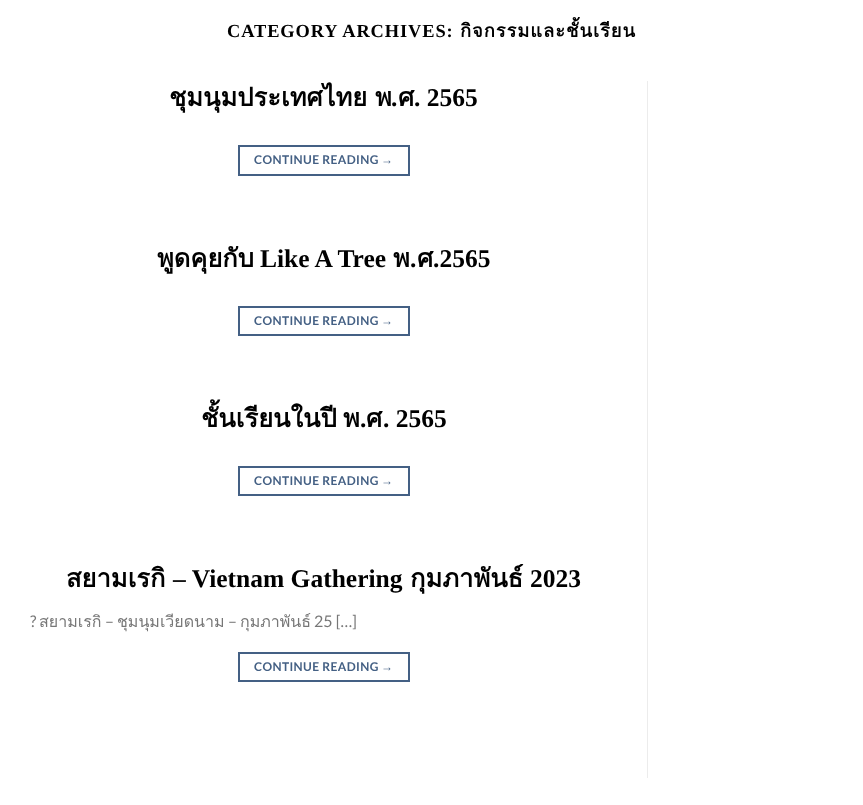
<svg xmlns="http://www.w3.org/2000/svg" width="863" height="805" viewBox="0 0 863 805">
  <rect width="100%" height="100%" fill="#fff"/>
  <path d="M239 146h170v29H239z" fill="none" stroke="#446084" stroke-width="2"/>
  <path d="M239 307h170v28H239z" fill="none" stroke="#446084" stroke-width="2"/>
  <path d="M239 467h170v28H239z" fill="none" stroke="#446084" stroke-width="2"/>
  <path d="M239 653h170v28H239z" fill="none" stroke="#446084" stroke-width="2"/>
  <path d="M647 81h1v697H647z" fill="#ececec"/>
  <text x="227" y="37" font-family="Liberation Serif" font-size="18.4" font-weight="bold" letter-spacing="0.9" fill="#000">CATEGORY ARCHIVES:</text>
  <text x="460" y="37" font-family="Loma" font-size="18.4" font-weight="bold" letter-spacing="0.9" fill="#000">กิจกรรมและชั้นเรียน</text>
  <g font-family="Loma" font-size="25.5" font-weight="bold" fill="#000">
    <text x="169" y="106">ชุมนุมประเทศไทย</text>
    <text x="375" y="106">พ</text>
  </g>
  <text x="391" y="106" font-family="Liberation Serif" font-size="25.5" font-weight="bold" fill="#000">.</text>
  <text x="398" y="106" font-family="Loma" font-size="25.5" font-weight="bold" fill="#000">ศ</text>
  <text x="414" y="106" font-family="Liberation Serif" font-size="25.5" font-weight="bold" fill="#000">. 2565</text>
  <text x="254" y="164" font-family="Lato" font-size="12" font-weight="bold" letter-spacing="0.4" fill="#446084">CONTINUE READING</text>
  <text x="381" y="164" font-family="Liberation Sans" font-size="12" font-weight="bold" letter-spacing="0.4" fill="#446084">→</text>
  <text x="157" y="267" font-family="Loma" font-size="25.5" font-weight="bold" fill="#000">พูดคุยกับ</text>
  <text x="260" y="267" font-family="Liberation Serif" font-size="25.5" font-weight="bold" fill="#000">Like A Tree</text>
  <text x="393" y="267" font-family="Loma" font-size="25.5" font-weight="bold" fill="#000">พ</text>
  <text x="410" y="267" font-family="Liberation Serif" font-size="25.5" font-weight="bold" fill="#000">.</text>
  <text x="417" y="267" font-family="Loma" font-size="25.5" font-weight="bold" fill="#000">ศ</text>
  <text x="433" y="267" font-family="Liberation Serif" font-size="25.5" font-weight="bold" fill="#000">.2565</text>
  <text x="254" y="325" font-family="Lato" font-size="12" font-weight="bold" letter-spacing="0.4" fill="#446084">CONTINUE READING</text>
  <text x="381" y="325" font-family="Liberation Sans" font-size="12" font-weight="bold" letter-spacing="0.4" fill="#446084">→</text>
  <g font-family="Loma" font-size="25.5" font-weight="bold" fill="#000">
    <text x="201" y="427">ชั้นเรียนในปี</text>
    <text x="343" y="427">พ</text>
  </g>
  <text x="360" y="427" font-family="Liberation Serif" font-size="25.5" font-weight="bold" fill="#000">.</text>
  <text x="366" y="427" font-family="Loma" font-size="25.5" font-weight="bold" fill="#000">ศ</text>
  <text x="383" y="427" font-family="Liberation Serif" font-size="25.5" font-weight="bold" fill="#000">. 2565</text>
  <text x="254" y="485" font-family="Lato" font-size="12" font-weight="bold" letter-spacing="0.4" fill="#446084">CONTINUE READING</text>
  <text x="381" y="485" font-family="Liberation Sans" font-size="12" font-weight="bold" letter-spacing="0.4" fill="#446084">→</text>
  <text x="66" y="587" font-family="Loma" font-size="25.5" font-weight="bold" fill="#000">สยามเรกิ</text>
  <text x="173" y="587" font-family="Liberation Serif" font-size="25.5" font-weight="bold" fill="#000">– Vietnam Gathering</text>
  <text x="410" y="587" font-family="Loma" font-size="25.5" font-weight="bold" fill="#000">กุมภาพันธ์</text>
  <text x="530" y="587" font-family="Liberation Serif" font-size="25.5" font-weight="bold" fill="#000">2023</text>
  <text x="30" y="627" font-family="Lato" font-size="16" fill="#777">?</text>
  <text x="39" y="627" font-family="Loma" font-size="16" fill="#777">สยามเรกิ</text>
  <text x="105" y="627" font-family="Lato" font-size="16" fill="#777">–</text>
  <text x="117" y="627" font-family="Loma" font-size="16" fill="#777">ชุมนุมเวียดนาม</text>
  <text x="228" y="627" font-family="Lato" font-size="16" fill="#777">–</text>
  <text x="240" y="627" font-family="Loma" font-size="16" fill="#777">กุมภาพันธ์</text>
  <text x="314" y="627" font-family="Lato" font-size="16" fill="#777">25 […]</text>
  <text x="254" y="671" font-family="Lato" font-size="12" font-weight="bold" letter-spacing="0.4" fill="#446084">CONTINUE READING</text>
  <text x="381" y="671" font-family="Liberation Sans" font-size="12" font-weight="bold" letter-spacing="0.4" fill="#446084">→</text>
</svg>
